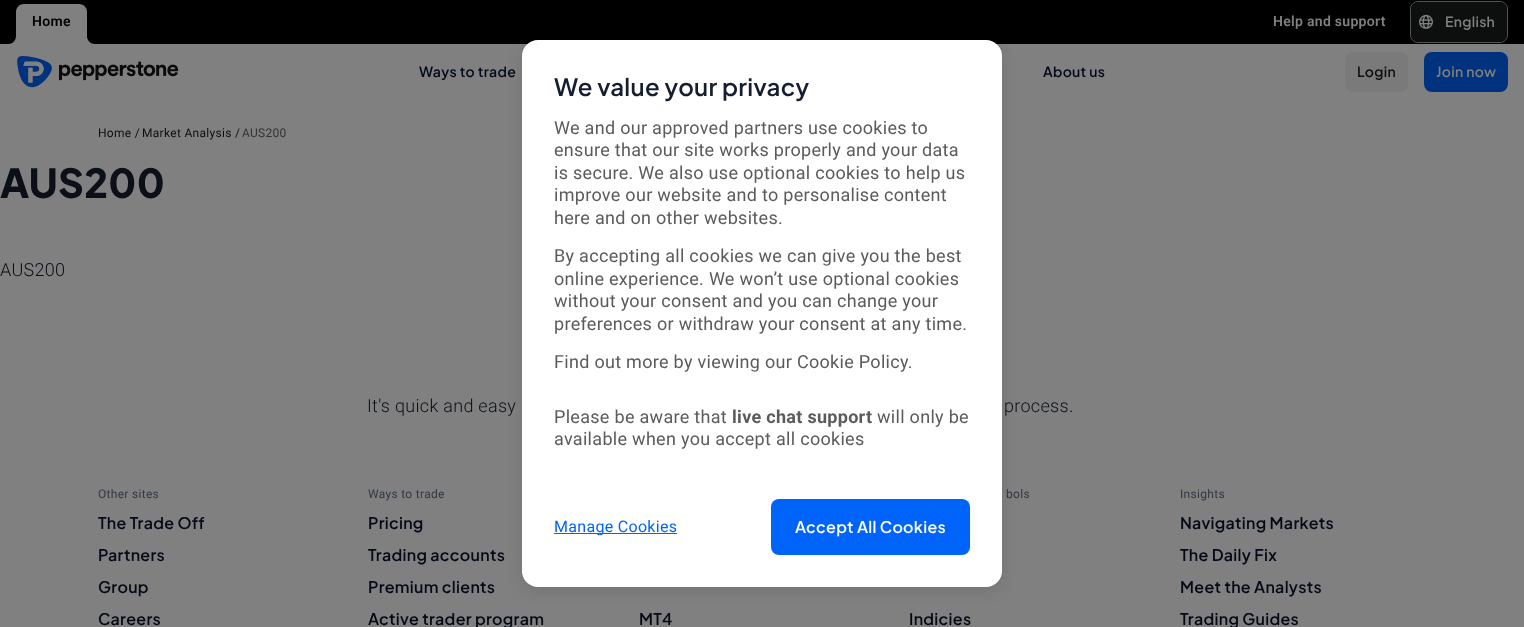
<svg xmlns="http://www.w3.org/2000/svg" width="1524" height="627" viewBox="0 0 1524 627">
  <rect width="100%" height="100%" fill="#808080"/>
  <path d="M0 0h1524v44H0z" fill="#000"/>
  <path d="M24 4H79C83.5 4 87 7.5 87 12V44H16V12C16 7.5 19.5 4 24 4Z" fill="#808080"/>
  <path d="M8 36h8v8H8z" fill="#808080"/>
  <path d="M8 28C12.5 28 16 31.5 16 36C16 40.5 12.5 44 8 44Z" fill="#000"/>
  <path d="M87 36h8v8H87z" fill="#808080"/>
  <path d="M95 28V44C90.5 44 87 40.5 87 36C87 31.5 90.5 28 95 28Z" fill="#000"/>
  <rect x="1410.5" y="1.5" width="97" height="41" rx="7.5" fill="none" stroke="#535353"/>
  <rect x="1411" y="2" width="96" height="40" rx="8" fill="#0d0e0e"/>
  <image x="1419" y="14" width="14" height="15" href="img/1.png"/>
  <image x="17" y="56" width="162" height="32" href="img/2.png"/>
  <rect x="1345" y="52" width="63" height="40" rx="8" fill="#7a7a7a"/>
  <rect x="1424" y="52" width="84" height="40" rx="8" fill="#00327d"/>
  <rect x="522" y="44" width="480" height="547" rx="16" fill="#0000001a" filter="blur(8px)"/>
  <rect x="522" y="40" width="480" height="547" rx="16" fill="#fff"/>
  <path d="M554 533h123v1H554z" fill="#0064fa"/>
  <rect x="771" y="499" width="199" height="56" rx="8" fill="#0064fa"/>
  <text x="32" y="26" font-family="Roboto" font-size="14" font-weight="600" letter-spacing="0.3" fill="#000">Home</text>
  <text x="1273" y="26" font-family="Roboto" font-size="14" font-weight="600" letter-spacing="0.3" fill="#808080">Help and support</text>
  <text x="1445" y="27" font-family="Plus Jakarta Sans" font-size="14" font-weight="600" letter-spacing="0.3" fill="#808080">English</text>
  <g font-family="Plus Jakarta Sans" font-size="14" font-weight="600" letter-spacing="0.3" fill="#020a17">
    <text x="419" y="77">Ways to trade</text>
    <text x="1043" y="77">About us</text>
  </g>
  <text x="1357" y="77" font-family="Plus Jakarta Sans" font-size="14" font-weight="600" letter-spacing="0.3" fill="#0d0e0e">Login</text>
  <text x="1436" y="77" font-family="Plus Jakarta Sans" font-size="14" font-weight="600" letter-spacing="0.3" fill="#808080">Join now</text>
  <g font-family="Roboto" font-size="12" letter-spacing="0.3" fill="#0d0e0e">
    <text x="98" y="137">Home /</text>
    <text x="142" y="137">Market Analysis /</text>
  </g>
  <text x="242" y="137" font-family="Roboto" font-size="12" letter-spacing="0.3" fill="#333">AUS200</text>
  <text x="0" y="198" font-family="Plus Jakarta Sans" font-size="40" font-weight="800" letter-spacing="0.3" fill="#0a0f18">AUS200</text>
  <g font-family="Roboto" font-size="18" font-weight="300" letter-spacing="0.3" fill="#0a0f18">
    <text x="0" y="276">AUS200</text>
    <text x="367" y="412">It's quick and easy</text>
    <text x="1004" y="412">process.</text>
  </g>
  <text x="98" y="498" font-family="Roboto" font-size="12" letter-spacing="0.3" fill="#313843">Other sites</text>
  <g font-family="Plus Jakarta Sans" font-size="16" font-weight="600" letter-spacing="0.3" fill="#020a17">
    <text x="98" y="529">The Trade Off</text>
    <text x="98" y="561">Partners</text>
    <text x="98" y="593">Group</text>
    <text x="98" y="625">Careers</text>
  </g>
  <text x="368" y="498" font-family="Roboto" font-size="12" letter-spacing="0.3" fill="#313843">Ways to trade</text>
  <g font-family="Plus Jakarta Sans" font-size="16" font-weight="600" letter-spacing="0.3" fill="#020a17">
    <text x="368" y="529">Pricing</text>
    <text x="368" y="561">Trading accounts</text>
    <text x="368" y="593">Premium clients</text>
    <text x="368" y="625">Active trader program</text>
    <text x="639" y="625">MT4</text>
  </g>
  <text x="1006" y="498" font-family="Roboto" font-size="12" letter-spacing="0.3" fill="#313843">bols</text>
  <text x="909" y="625" font-family="Plus Jakarta Sans" font-size="16" font-weight="600" letter-spacing="0.3" fill="#020a17">Indicies</text>
  <text x="1180" y="498" font-family="Roboto" font-size="12" letter-spacing="0.3" fill="#313843">Insights</text>
  <g font-family="Plus Jakarta Sans" font-size="16" font-weight="600" letter-spacing="0.3" fill="#020a17">
    <text x="1180" y="529">Navigating Markets</text>
    <text x="1180" y="561">The Daily Fix</text>
    <text x="1180" y="593">Meet the Analysts</text>
    <text x="1180" y="625">Trading Guides</text>
  </g>
  <text x="554" y="96" font-family="Plus Jakarta Sans" font-size="24" font-weight="600" letter-spacing="0.3" fill="#141e30">We value your privacy</text>
  <g font-family="Roboto" font-size="18" letter-spacing="0.3" fill="#5a5b5b">
    <text x="554" y="134">We and our approved partners use cookies to</text>
    <text x="554" y="156">ensure that our site works properly and your data</text>
    <text x="554" y="179">is secure. We also use optional cookies to help us</text>
    <text x="554" y="201">improve our website and to personalise content</text>
    <text x="554" y="224">here and on other websites.</text>
    <text x="554" y="262">By accepting all cookies we can give you the best</text>
    <text x="554" y="285">online experience. We won’t use optional cookies</text>
    <text x="554" y="307">without your consent and you can change your</text>
    <text x="554" y="330">preferences or withdraw your consent at any time.</text>
    <text x="554" y="368">Find out more by viewing our Cookie Policy.</text>
    <text x="554" y="423">Please be aware that</text>
  </g>
  <text x="732" y="423" font-family="Roboto" font-size="18" font-weight="bold" letter-spacing="0.3" fill="#5a5b5b">live chat support</text>
  <g font-family="Roboto" font-size="18" letter-spacing="0.3" fill="#5a5b5b">
    <text x="877" y="423">will only be</text>
    <text x="554" y="445">available when you accept all cookies</text>
  </g>
  <text x="554" y="532" font-family="Roboto" font-size="16" letter-spacing="0.3" fill="#0064fa">Manage Cookies</text>
  <text x="795" y="533" font-family="Plus Jakarta Sans" font-size="16" font-weight="600" letter-spacing="0.3" fill="#fff">Accept All Cookies</text>
</svg>
